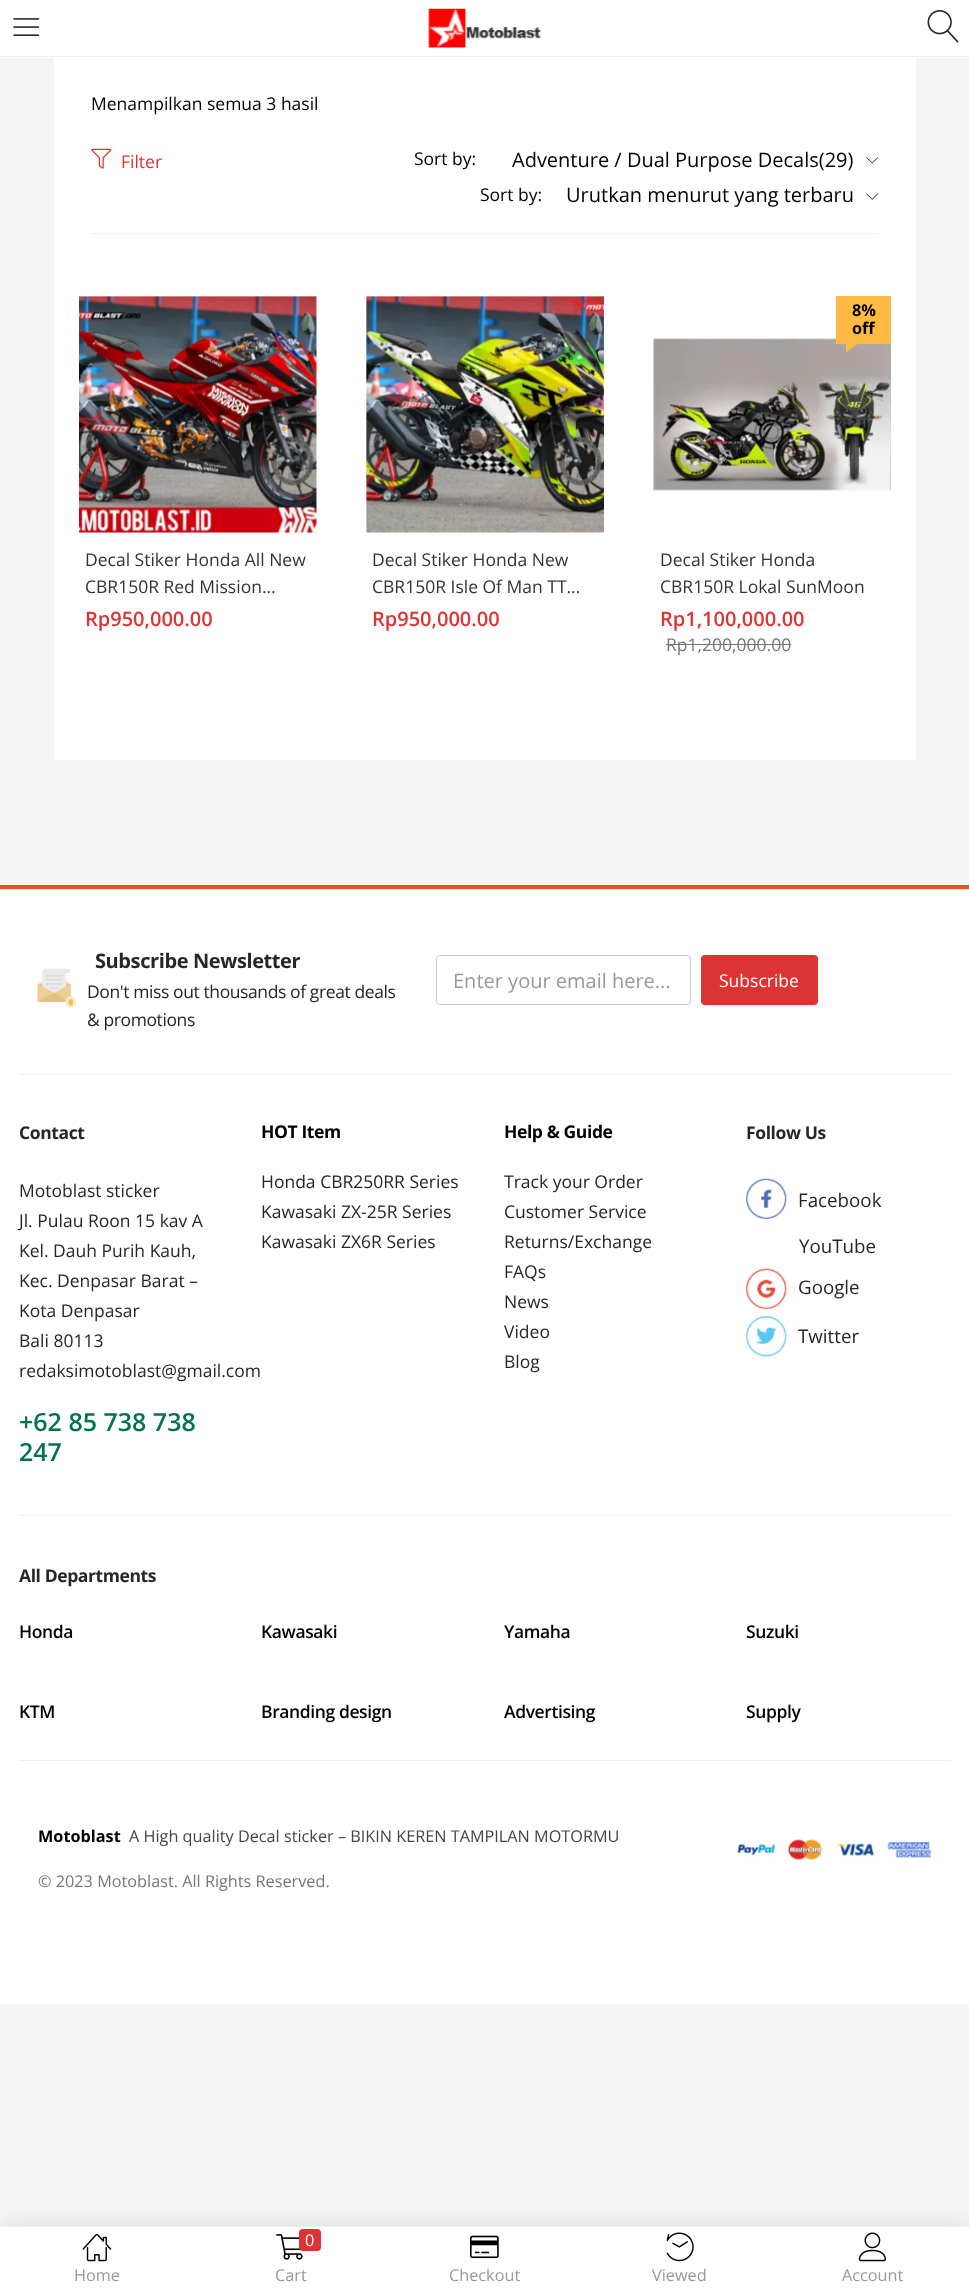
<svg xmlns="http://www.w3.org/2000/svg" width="969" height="2291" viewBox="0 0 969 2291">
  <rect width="100%" height="100%" fill="#f5f5f5"/>
  <path d="M0 0h969v58H0z" fill="#fff"/>
  <path d="M0 56h969v1H0z" fill="#f0f0f0"/>
  <image x="13" y="18" width="27" height="18" href="img/1.png"/>
  <image x="428" y="8" width="114" height="40" href="img/2.png"/>
  <image x="927" y="10" width="32" height="33" href="img/3.png"/>
  <path d="M54 58h862v702H54z" fill="#fff"/>
  <path d="M91 233h788v1H91z" fill="#f0f0f0"/>
  <image x="91" y="148" width="21" height="21" href="img/4.png"/>
  <image x="866" y="157" width="13" height="7" href="img/5.png"/>
  <image x="866" y="193" width="13" height="7" href="img/6.png"/>
  <image x="79" y="296" width="238" height="237" href="img/7.png"/>
  <image x="366" y="296" width="238" height="237" href="img/8.png"/>
  <image x="653" y="337" width="238" height="155" href="img/9.png"/>
  <path d="M836 296h55v48H836z" fill="#ffba43"/>
  <path d="M666 644h125v1H666z" fill="#777"/>
  <path d="M0 889h969v1115H0z" fill="#fff"/>
  <path d="M0 885h969v4H0z" fill="#fa4f26"/>
  <image x="37" y="968" width="40" height="40" href="img/10.png"/>
  <rect x="436.5" y="955.5" width="254" height="49" rx="3.5" fill="none" stroke="#ccc"/>
  <rect x="701" y="955" width="117" height="50" rx="4" fill="#d33"/>
  <path d="M19 1074h932v1H19z" fill="#f0f0f0"/>
  <image x="746" y="1178" width="41" height="41" href="img/11.png"/>
  <image x="746" y="1268" width="41" height="41" href="img/12.png"/>
  <image x="746" y="1315" width="41" height="42" href="img/13.png"/>
  <path d="M19 1515h932v1H19z" fill="#f0f0f0"/>
  <path d="M19 1760h932v1H19z" fill="#f0f0f0"/>
  <image x="737" y="1839" width="194" height="21" href="img/14.png"/>
  <path d="M0 2226h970v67H0z" fill="#0000001a" filter="blur(12.5px)"/>
  <path d="M0 2227h969v64H0z" fill="#fff"/>
  <path d="M0 2226h969v1H0z" fill="#f0f0f0"/>
  <image x="82" y="2233" width="30" height="29" href="img/15.png"/>
  <image x="276" y="2234" width="27" height="26" href="img/16.png"/>
  <rect x="299" y="2229" width="22" height="22" rx="4" fill="#d33"/>
  <image x="470" y="2235" width="29" height="24" href="img/17.png"/>
  <image x="666" y="2232" width="28" height="30" href="img/18.png"/>
  <image x="858" y="2232" width="29" height="30" href="img/19.png"/>
  <text x="91" y="110" font-family="Open Sans" font-size="17.5" fill="#000">Menampilkan semua 3 hasil</text>
  <text x="121" y="168" font-family="Open Sans" font-size="17.5" fill="#d33">Filter</text>
  <text x="414" y="165" font-family="Open Sans" font-size="17.5" fill="#000">Sort by:</text>
  <text x="512" y="167" font-family="Open Sans" font-size="20" fill="#000">Adventure / Dual Purpose Decals(29)</text>
  <text x="480" y="201" font-family="Open Sans" font-size="17.5" fill="#000">Sort by:</text>
  <text x="566" y="202" font-family="Open Sans" font-size="20" fill="#000">Urutkan menurut yang terbaru</text>
  <g font-family="Open Sans" font-size="17.5" fill="#333">
    <text x="85" y="566">Decal Stiker Honda All New</text>
    <text x="85" y="593">CBR150R Red Mission…</text>
  </g>
  <text x="85" y="626" font-family="Open Sans" font-size="20" font-weight="600" fill="#d33">Rp950,000.00</text>
  <g font-family="Open Sans" font-size="17.5" fill="#333">
    <text x="372" y="566">Decal Stiker Honda New</text>
    <text x="372" y="593">CBR150R Isle Of Man TT…</text>
  </g>
  <text x="372" y="626" font-family="Open Sans" font-size="20" font-weight="600" fill="#d33">Rp950,000.00</text>
  <g font-family="Open Sans" font-size="16.25" font-weight="bold" fill="#000">
    <text x="852" y="316">8%</text>
    <text x="852" y="334">off</text>
  </g>
  <path d="M846 352.5V329L857.5 344Z" fill="#ffba43"/>
  <g font-family="Open Sans" font-size="17.5" fill="#333">
    <text x="660" y="566">Decal Stiker Honda</text>
    <text x="660" y="593">CBR150R Lokal SunMoon</text>
  </g>
  <text x="660" y="626" font-family="Open Sans" font-size="20" font-weight="600" fill="#d33">Rp1,100,000.00</text>
  <text x="666" y="651" font-family="Open Sans" font-size="17.5" fill="#777">Rp1,200,000.00</text>
  <text x="95" y="968" font-family="Open Sans" font-size="20" font-weight="bold" letter-spacing="-0.4" fill="#262626">Subscribe Newsletter</text>
  <g font-family="Open Sans" font-size="17.5" letter-spacing="-0.4" fill="#262626">
    <text x="87" y="998">Don't miss out thousands of great deals</text>
    <text x="87" y="1026">&amp; promotions</text>
  </g>
  <text x="453" y="988" font-family="Open Sans" font-size="20" fill="#999">Enter your email here...</text>
  <text x="719" y="987" font-family="Open Sans" font-size="17.5" fill="#fff">Subscribe</text>
  <text x="19" y="1139" font-family="Open Sans" font-size="17.5" font-weight="bold" letter-spacing="-0.4" fill="#262626">Contact</text>
  <g font-family="Open Sans" font-size="17.5" fill="#262626">
    <text x="19" y="1197">Motoblast sticker</text>
    <text x="19" y="1227">Jl. Pulau Roon 15 kav A</text>
    <text x="19" y="1257">Kel. Dauh Purih Kauh,</text>
    <text x="19" y="1287">Kec. Denpasar Barat –</text>
    <text x="19" y="1317">Kota Denpasar</text>
    <text x="19" y="1347">Bali 80113</text>
    <text x="19" y="1377">redaksimotoblast@gmail.com</text>
  </g>
  <g font-family="Open Sans" font-size="25" font-weight="600" fill="#02734a">
    <text x="19" y="1431">+62 85 738 738</text>
    <text x="19" y="1461">247</text>
  </g>
  <text x="261" y="1138" font-family="Open Sans" font-size="17.5" font-weight="bold" letter-spacing="-0.4" fill="#000">HOT Item</text>
  <g font-family="Open Sans" font-size="17.5" fill="#262626">
    <text x="261" y="1188">Honda CBR250RR Series</text>
    <text x="261" y="1218">Kawasaki ZX-25R Series</text>
    <text x="261" y="1248">Kawasaki ZX6R Series</text>
  </g>
  <text x="504" y="1138" font-family="Open Sans" font-size="17.5" font-weight="bold" letter-spacing="-0.4" fill="#000">Help &amp; Guide</text>
  <g font-family="Open Sans" font-size="17.5" fill="#262626">
    <text x="504" y="1188">Track your Order</text>
    <text x="504" y="1218">Customer Service</text>
    <text x="504" y="1248">Returns/Exchange</text>
    <text x="504" y="1278">FAQs</text>
    <text x="504" y="1308">News</text>
    <text x="504" y="1338">Video</text>
    <text x="504" y="1368">Blog</text>
  </g>
  <text x="746" y="1139" font-family="Open Sans" font-size="17.5" font-weight="bold" letter-spacing="-0.4" fill="#262626">Follow Us</text>
  <g font-family="Open Sans" font-size="18.75" fill="#262626">
    <text x="798" y="1207">Facebook</text>
    <text x="799" y="1253">YouTube</text>
    <text x="798" y="1294">Google</text>
    <text x="798" y="1343">Twitter</text>
  </g>
  <text x="19" y="1582" font-family="Open Sans" font-size="17.5" font-weight="bold" letter-spacing="-0.4" fill="#262626">All Departments</text>
  <g font-family="Open Sans" font-size="17.5" font-weight="600" letter-spacing="-0.4" fill="#000">
    <text x="19" y="1638">Honda</text>
    <text x="261" y="1638">Kawasaki</text>
    <text x="504" y="1638">Yamaha</text>
    <text x="746" y="1638">Suzuki</text>
    <text x="19" y="1718">KTM</text>
    <text x="261" y="1718">Branding design</text>
    <text x="504" y="1718">Advertising</text>
    <text x="746" y="1718">Supply</text>
  </g>
  <text x="38" y="1842" font-family="Open Sans" font-size="16.25" font-weight="bold" fill="#000">Motoblast</text>
  <text x="129" y="1842" font-family="Open Sans" font-size="16.25" fill="#444">A High quality Decal sticker – BIKIN KEREN TAMPILAN MOTORMU</text>
  <text x="38" y="1887" font-family="Open Sans" font-size="16.25" fill="#777">© 2023 Motoblast. All Rights Reserved.</text>
  <text x="74" y="2281" font-family="Open Sans" font-size="16.25" fill="#999">Home</text>
  <text x="305" y="2246" font-family="Open Sans" font-size="16.25" fill="#fff">0</text>
  <g font-family="Open Sans" font-size="16.25" fill="#999">
    <text x="275" y="2281">Cart</text>
    <text x="449" y="2281">Checkout</text>
    <text x="652" y="2281">Viewed</text>
    <text x="842" y="2281">Account</text>
  </g>
</svg>
